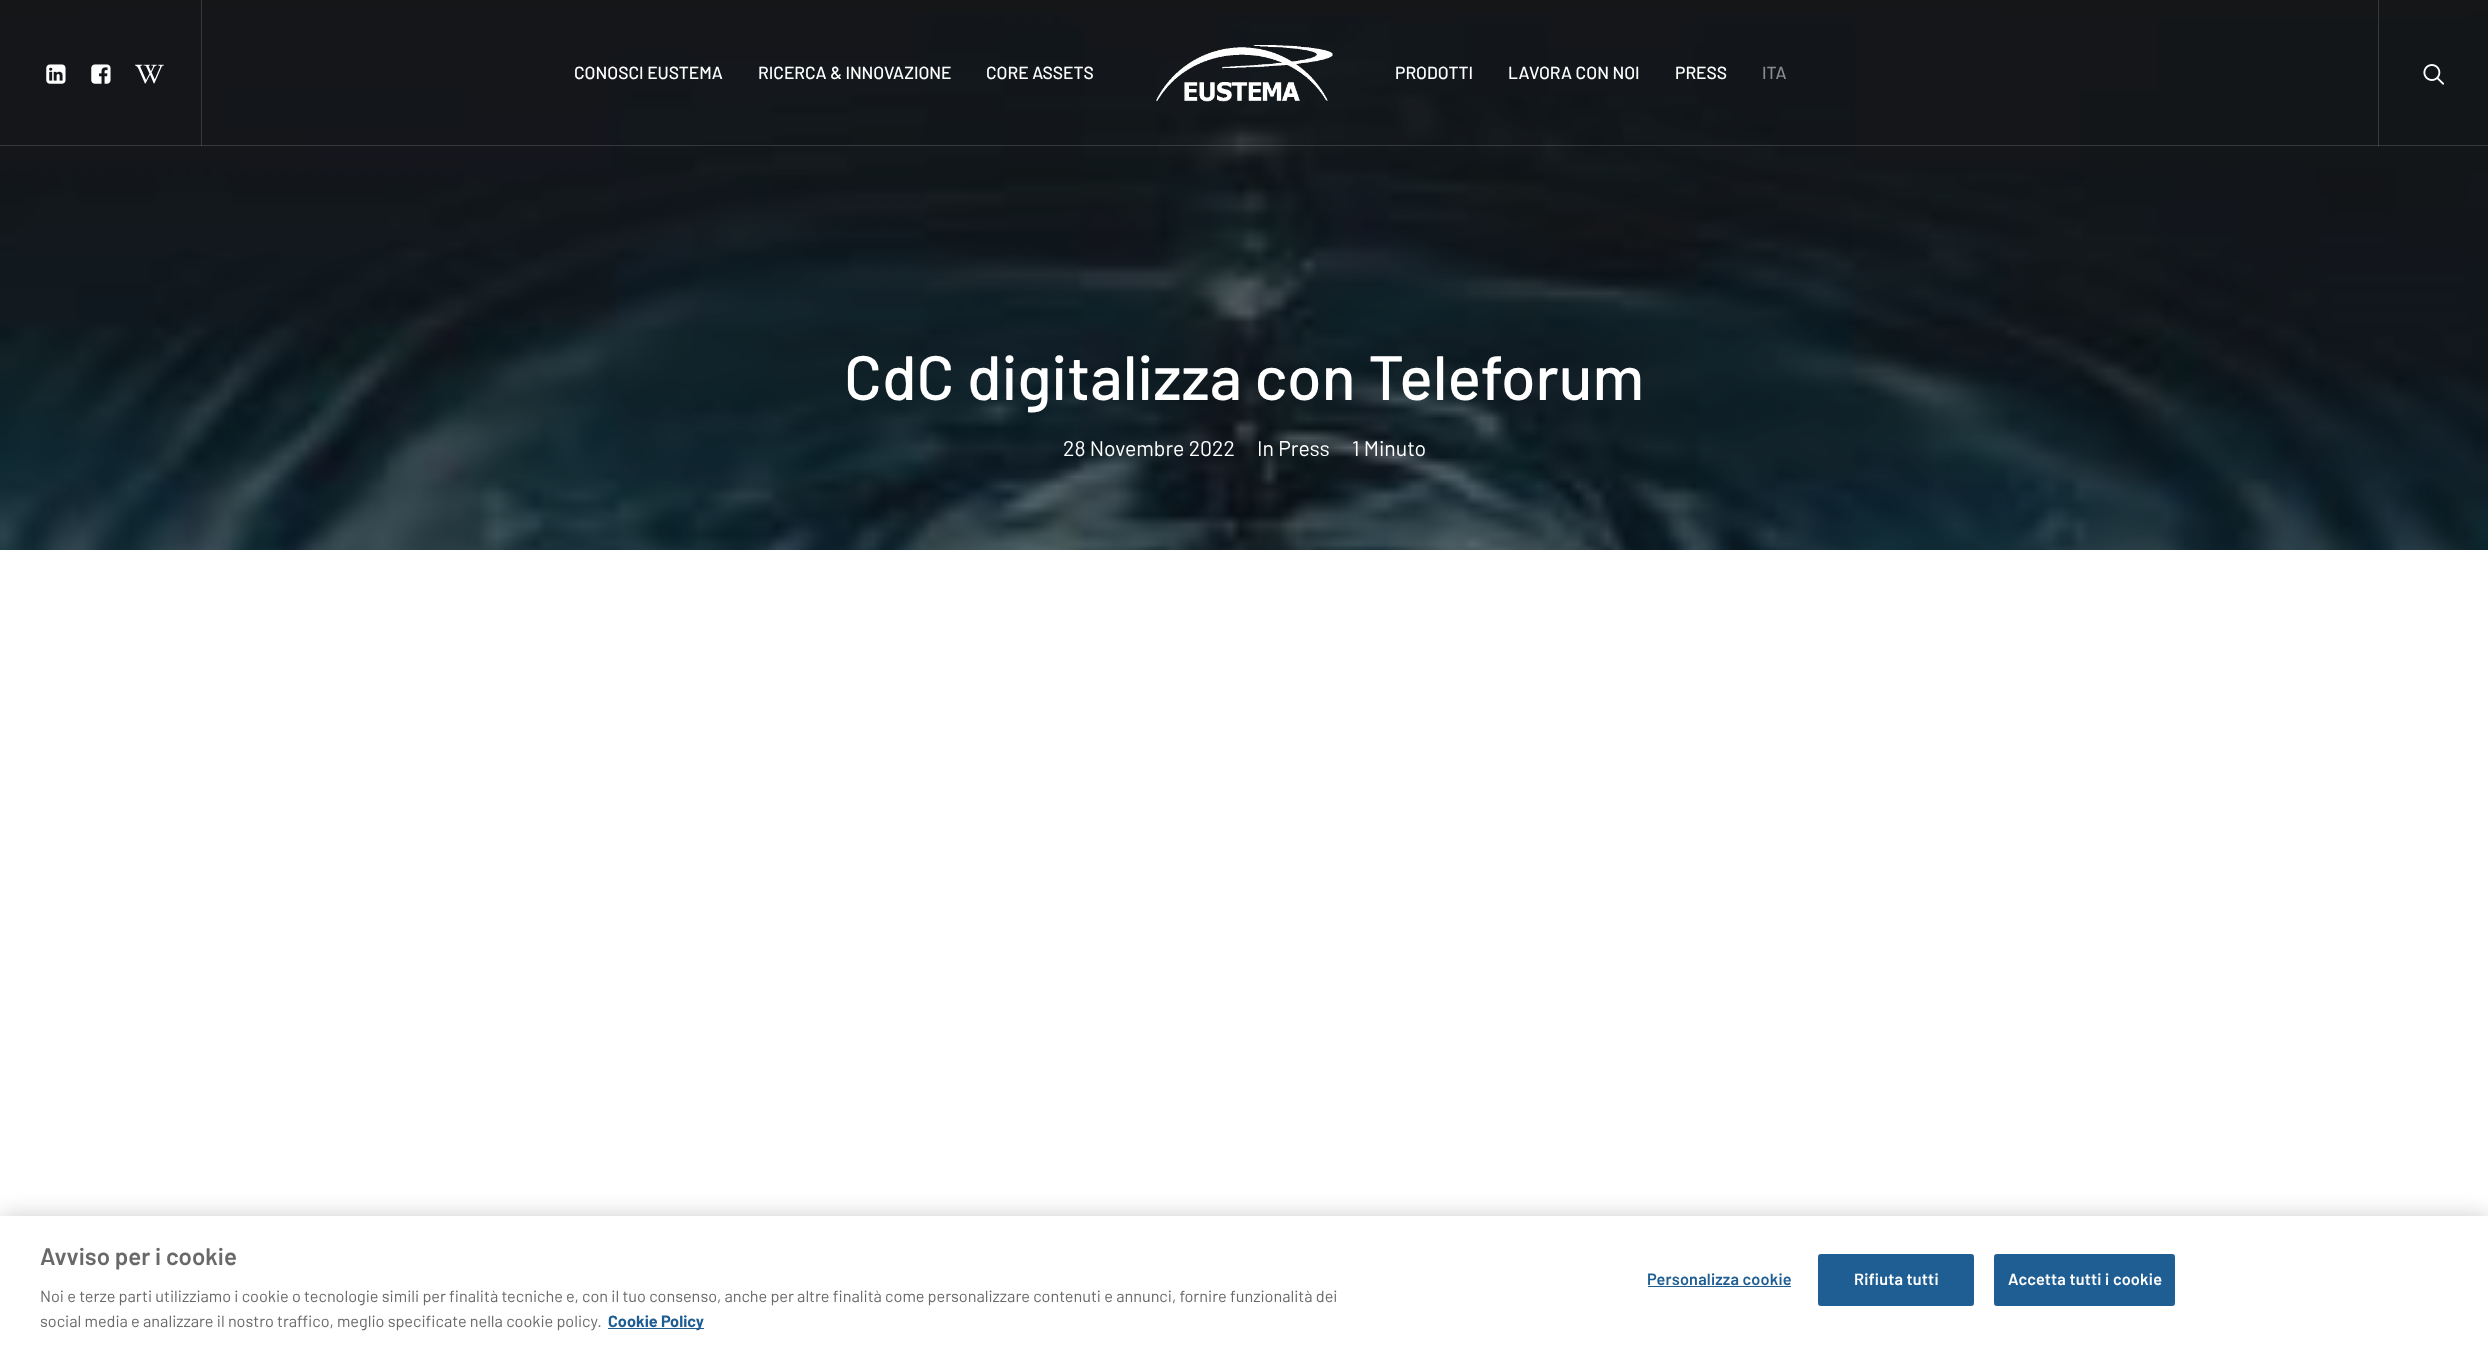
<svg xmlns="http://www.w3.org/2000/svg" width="2488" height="1346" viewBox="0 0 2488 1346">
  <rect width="100%" height="100%" fill="#141618"/>
  <image x="0" y="13" width="2488" height="537" href="img/6.png"/>
  <image x="46" y="64" width="20" height="20" href="img/1.png"/>
  <image x="91" y="64" width="20" height="20" href="img/2.png"/>
  <image x="135" y="64" width="29" height="20" href="img/3.png"/>
  <path d="M0 145h2488v1H0z" fill="#ffffff26"/>
  <path d="M201 0h1v146H201z" fill="#ffffff26"/>
  <image x="1156" y="45" width="177" height="57" href="img/4.png"/>
  <path d="M2378 0h1v146H2378z" fill="#ffffff26"/>
  <image x="2423" y="64" width="22" height="21" href="img/5.png"/>
  <path d="M0 550h2488v666H0z" fill="#fff"/>
  <path d="M0 1216h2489v130H0z" fill="#00000033" filter="blur(11px)"/>
  <path d="M0 1216h2488v130H0z" fill="#fff"/>
  <path d="M608 1328h96v1H608z" fill="#1f5e93"/>
  <path d="M1648 1286h143v1H1648z" fill="#1f5e93"/>
  <rect x="1818.5" y="1254.5" width="155" height="51" rx="2" fill="#1f5e93" stroke="#1f5e93"/>
  <rect x="1994.5" y="1254.5" width="180" height="51" rx="2" fill="#1f5e93" stroke="#1f5e93"/>
  <g font-family="Barlow" font-size="17.5" font-weight="500" fill="#fff">
    <text x="574" y="79">CONOSCI EUSTEMA</text>
    <text x="758" y="79">RICERCA &amp; INNOVAZIONE</text>
    <text x="986" y="79">CORE ASSETS</text>
    <text x="1395" y="79">PRODOTTI</text>
    <text x="1508" y="79">LAVORA CON NOI</text>
    <text x="1675" y="79">PRESS</text>
  </g>
  <text x="1762" y="79" font-family="Barlow" font-size="17.5" font-weight="500" fill="#898b8d">ITA</text>
  <text x="844" y="400" font-family="Barlow" font-size="62.5" font-weight="500" fill="#fff">CdC digitalizza con Teleforum</text>
  <g font-family="Barlow" font-size="21.25" fill="#fff">
    <text x="1063" y="456">28 Novembre 2022</text>
    <text x="1257" y="456">In Press</text>
    <text x="1352" y="456">1 Minuto</text>
  </g>
  <text x="40" y="1265" font-family="Barlow" font-size="24" font-weight="600" fill="#696969">Avviso per i cookie</text>
  <g font-family="Barlow" font-size="16.25" fill="#696969">
    <text x="40" y="1302">Noi e terze parti utilizziamo i cookie o tecnologie simili per finalità tecniche e, con il tuo consenso, anche per altre finalità come personalizzare contenuti e annunci, fornire funzionalità dei</text>
    <text x="40" y="1327">social media e analizzare il nostro traffico, meglio specificate nella cookie policy.</text>
  </g>
  <text x="608" y="1327" font-family="Barlow" font-size="16.25" font-weight="bold" fill="#1f5e93">Cookie Policy</text>
  <text x="1647" y="1285" font-family="Barlow" font-size="16.25" font-weight="600" letter-spacing="0.2" fill="#1f5e93">Personalizza cookie</text>
  <g font-family="Barlow" font-size="16.25" font-weight="600" letter-spacing="0.2" fill="#fff">
    <text x="1854" y="1285">Rifiuta tutti</text>
    <text x="2008" y="1285">Accetta tutti i cookie</text>
  </g>
</svg>
